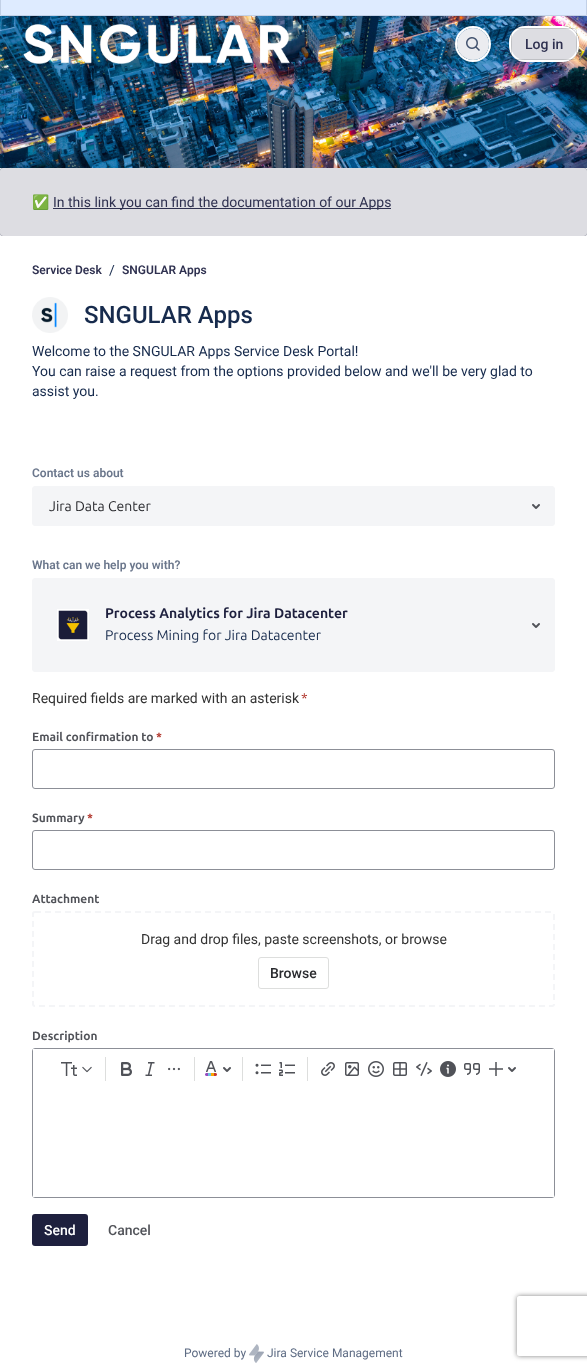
<svg xmlns="http://www.w3.org/2000/svg" width="587" height="1370" viewBox="0 0 587 1370">
  <defs>
    <clipPath id="clip1"><path d="M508 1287H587V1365H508ZM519 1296H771C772 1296 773 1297 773 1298V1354C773 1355 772 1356 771 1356H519C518 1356 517 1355 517 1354V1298C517 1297 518 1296 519 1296Z" clip-rule="evenodd"/></clipPath>
  </defs>
  <rect width="100%" height="100%" fill="#fff"/>
  <path d="M0.5 -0.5h586v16H0.5z" fill="#deebff" stroke="#c2d0e6"/>
  <image x="0" y="16" width="587" height="152" href="img/1.png"/>
  <image x="23" y="24" width="267" height="40" href="img/2.png"/>
  <circle cx="473" cy="44" r="17" fill="none" stroke="#fff" stroke-width="2"/>
  <circle cx="473" cy="44" r="16" fill="#ebecf0"/>
  <image x="466" y="37" width="14" height="14" href="img/3.png"/>
  <rect x="509" y="26" width="70" height="36" rx="16" fill="#1e203e"/>
  <rect x="510" y="27" width="68" height="34" rx="15" fill="#ffffffd9" stroke="#fff" stroke-width="2"/>
  <rect x="511.5" y="28.5" width="65" height="31" rx="2.5" fill="none" stroke="#0b120e24"/>
  <rect y="168" width="587" height="68" rx="3" fill="#1e203e"/>
  <rect y="168" width="587" height="68" rx="3" fill="#ffffffd9"/>
  <path d="M53 208h338v1H53z" fill="#2f3150"/>
  <image x="32" y="297" width="36" height="36" href="img/4.png"/>
  <rect x="32.5" y="486.5" width="522" height="39" rx="2.5" fill="#f4f5f7" stroke="#f4f5f7"/>
  <image x="532" y="504" width="8" height="5" href="img/5.png"/>
  <rect x="32.5" y="578.5" width="522" height="93" rx="2.5" fill="#f4f5f7" stroke="#f4f5f7"/>
  <image x="57" y="609" width="32" height="32" href="img/6.png"/>
  <image x="532" y="623" width="8" height="5" href="img/5.png"/>
  <rect x="32.5" y="749.5" width="522" height="39" rx="2.5" fill="none" stroke="#8c8f97"/>
  <rect x="32.5" y="830.5" width="522" height="39" rx="2.5" fill="none" stroke="#8c8f97"/>
  <path d="M35 912H552C553 912 554 913 554 914V1004C554 1005 553 1006 552 1006H35C34 1006 33 1005 33 1004V914C33 913 34 912 35 912Z" fill="none" stroke="#f4f5f7" stroke-width="2" stroke-dasharray="6 4"/>
  <rect x="258.5" y="957.5" width="70" height="31" rx="2.5" fill="none" stroke="#dddedd"/>
  <rect x="32.5" y="1048.5" width="522" height="149" rx="2.5" fill="none" stroke="#8c8f97"/>
  <path d="M33 1049h521v2H33z" fill="#fff"/>
  <image x="61" y="1062" width="16" height="14" href="img/7.png"/>
  <image x="82" y="1066" width="10" height="7" href="img/8.png"/>
  <path d="M105 1057h1v24H105z" fill="#dddedd"/>
  <image x="121" y="1062" width="11" height="14" href="img/9.png"/>
  <image x="145" y="1062" width="10" height="14" href="img/10.png"/>
  <image x="168" y="1067" width="12" height="4" href="img/11.png"/>
  <path d="M194 1057h1v24H194z" fill="#dddedd"/>
  <image x="206" y="1061" width="10" height="11" href="img/12.png"/>
  <image x="205" y="1073" width="12" height="3" href="img/13.png"/>
  <image x="223" y="1067" width="8" height="5" href="img/14.png"/>
  <path d="M242 1057h1v24H242z" fill="#dddedd"/>
  <image x="255" y="1063" width="16" height="12" href="img/15.png"/>
  <image x="279" y="1062" width="16" height="14" href="img/16.png"/>
  <path d="M307 1057h1v24H307z" fill="#dddedd"/>
  <image x="321" y="1062" width="14" height="14" href="img/17.png"/>
  <image x="345" y="1062" width="14" height="14" href="img/18.png"/>
  <image x="368" y="1061" width="16" height="16" href="img/19.png"/>
  <image x="393" y="1062" width="14" height="14" href="img/20.png"/>
  <image x="416" y="1062" width="16" height="14" href="img/21.png"/>
  <image x="440" y="1061" width="16" height="16" href="img/22.png"/>
  <image x="464" y="1063" width="16" height="12" href="img/23.png"/>
  <image x="489" y="1062" width="14" height="14" href="img/24.png"/>
  <image x="508" y="1067" width="8" height="5" href="img/14.png"/>
  <path d="M33 1195h521v2H33z" fill="#fff"/>
  <rect x="32" y="1214" width="56" height="32" rx="3" fill="#1e203e"/>
  <g clip-path="url(#clip1)">
    <rect x="517" y="1296" width="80" height="60" rx="2" fill="#808080" filter="blur(2.5px)"/>
  </g>
  <image x="249" y="1344" width="15" height="19" href="img/25.png"/>
  <text x="525" y="49" font-family="Roboto" font-size="14" font-weight="500" fill="#2f3150">Log in</text>
  <text x="32" y="207" font-family="Noto Color Emoji" font-size="14" fill="#172b4d">✅</text>
  <text x="53" y="207" font-family="Roboto" font-size="14" fill="#2f3150">In this link you can find the documentation of our Apps</text>
  <text x="32" y="274" font-family="Roboto" font-size="12" font-weight="600" fill="#2f3150">Service Desk</text>
  <text x="109" y="275" font-family="Roboto" font-size="14" fill="#172b4d">/</text>
  <text x="122" y="274" font-family="Roboto" font-size="12" font-weight="600" fill="#2f3150">SNGULAR Apps</text>
  <text x="84" y="323" font-family="Roboto" font-size="24" font-weight="500" fill="#172b4d">SNGULAR Apps</text>
  <g font-family="Roboto" font-size="14" fill="#172b4d">
    <text x="32" y="356">Welcome to the SNGULAR Apps Service Desk Portal!</text>
    <text x="32" y="376">You can raise a request from the options provided below and we'll be very glad to</text>
    <text x="32" y="396">assist you.</text>
  </g>
  <text x="32" y="477" font-family="Roboto" font-size="12" font-weight="600" fill="#6b778c">Contact us about</text>
  <text x="49" y="511" font-family="Ubuntu" font-size="14" fill="#292a2e">Jira Data Center</text>
  <text x="32" y="569" font-family="Roboto" font-size="12" font-weight="600" fill="#6b778c">What can we help you with?</text>
  <text x="105" y="618" font-family="Ubuntu" font-size="14" font-weight="bold" fill="#1e203e">Process Analytics for Jira Datacenter</text>
  <text x="105" y="640" font-family="Ubuntu" font-size="14" fill="#172b4d">Process Mining for Jira Datacenter</text>
  <text x="32" y="703" font-family="Roboto" font-size="14" fill="#333">Required fields are marked with an asterisk</text>
  <text x="301" y="703" font-family="Ubuntu" font-size="14" fill="#ae2e24">*</text>
  <text x="32" y="741" font-family="Ubuntu" font-size="12" font-weight="bold" fill="#505258">Email confirmation to</text>
  <text x="156" y="741" font-family="Ubuntu" font-size="12" font-weight="bold" fill="#ae2e24">*</text>
  <text x="32" y="822" font-family="Ubuntu" font-size="12" font-weight="bold" fill="#505258">Summary</text>
  <text x="87" y="822" font-family="Ubuntu" font-size="12" font-weight="bold" fill="#ae2e24">*</text>
  <text x="32" y="903" font-family="Ubuntu" font-size="12" font-weight="bold" fill="#505258">Attachment</text>
  <text x="141" y="944" font-family="Roboto" font-size="14" fill="#333">Drag and drop files, paste screenshots, or browse</text>
  <text x="270" y="978" font-family="Roboto" font-size="14" font-weight="500" fill="#292a2e">Browse</text>
  <text x="32" y="1040" font-family="Ubuntu" font-size="12" font-weight="bold" fill="#505258">Description</text>
  <text x="44" y="1235" font-family="Roboto" font-size="14" font-weight="500" fill="#fff">Send</text>
  <text x="108" y="1235" font-family="Roboto" font-size="14" font-weight="500" fill="#505258">Cancel</text>
  <g font-family="Roboto" font-size="12" fill="#5e6c84">
    <text x="184" y="1357">Powered by</text>
    <text x="267" y="1357">Jira Service Management</text>
  </g>
</svg>
